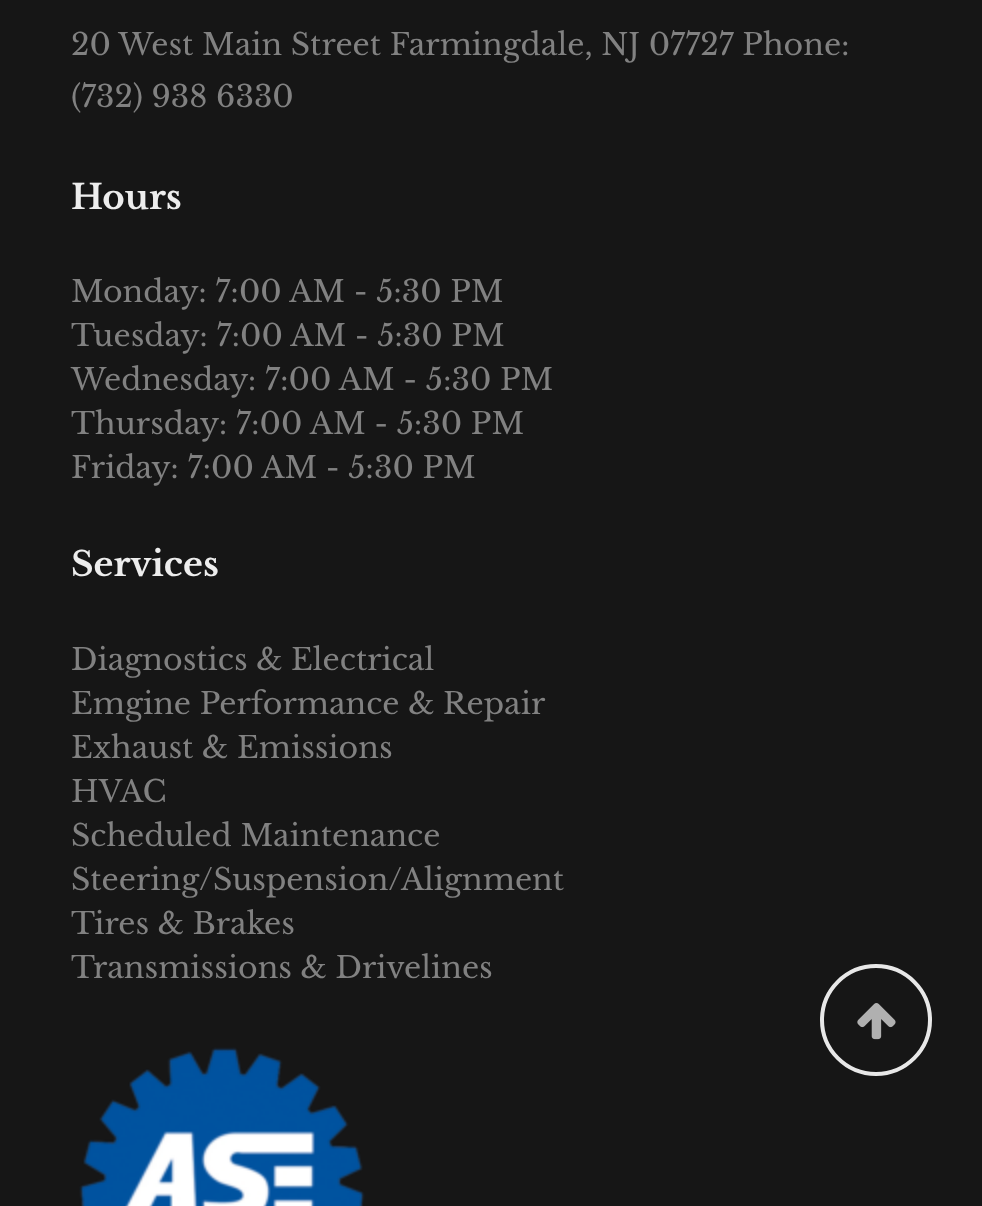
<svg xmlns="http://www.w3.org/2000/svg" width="982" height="1206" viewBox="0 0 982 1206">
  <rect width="100%" height="100%" fill="#161616"/>
  <image x="79" y="1047" width="286" height="159" href="img/1.png"/>
  <circle cx="876" cy="1020" r="54" fill="none" stroke="#e8e8e8" stroke-width="4"/>
  <image x="857" y="1003" width="39" height="37" href="img/2.png"/>
  <g font-family="Libre Baskerville" font-size="30" fill="#818181">
    <text x="71" y="55">20 West Main Street Farmingdale, NJ 07727 Phone:</text>
    <text x="71" y="107">(732) 938 6330</text>
  </g>
  <text x="71" y="209" font-family="Libre Baskerville" font-size="34" font-weight="bold" fill="#ededed">Hours</text>
  <g font-family="Libre Baskerville" font-size="30" fill="#818181">
    <text x="71" y="302">Monday: 7:00 AM - 5:30 PM</text>
    <text x="71" y="346">Tuesday: 7:00 AM - 5:30 PM</text>
    <text x="71" y="390">Wednesday: 7:00 AM - 5:30 PM</text>
    <text x="71" y="434">Thursday: 7:00 AM - 5:30 PM</text>
    <text x="71" y="478">Friday: 7:00 AM - 5:30 PM</text>
  </g>
  <text x="71" y="576" font-family="Libre Baskerville" font-size="34" font-weight="bold" fill="#ededed">Services</text>
  <g font-family="Libre Baskerville" font-size="30" fill="#818181">
    <text x="71" y="670">Diagnostics &amp; Electrical</text>
    <text x="71" y="714">Emgine Performance &amp; Repair</text>
    <text x="71" y="758">Exhaust &amp; Emissions</text>
    <text x="71" y="802">HVAC</text>
    <text x="71" y="846">Scheduled Maintenance</text>
    <text x="71" y="890">Steering/Suspension/Alignment</text>
    <text x="71" y="934">Tires &amp; Brakes</text>
    <text x="71" y="978">Transmissions &amp; Drivelines</text>
  </g>
</svg>
